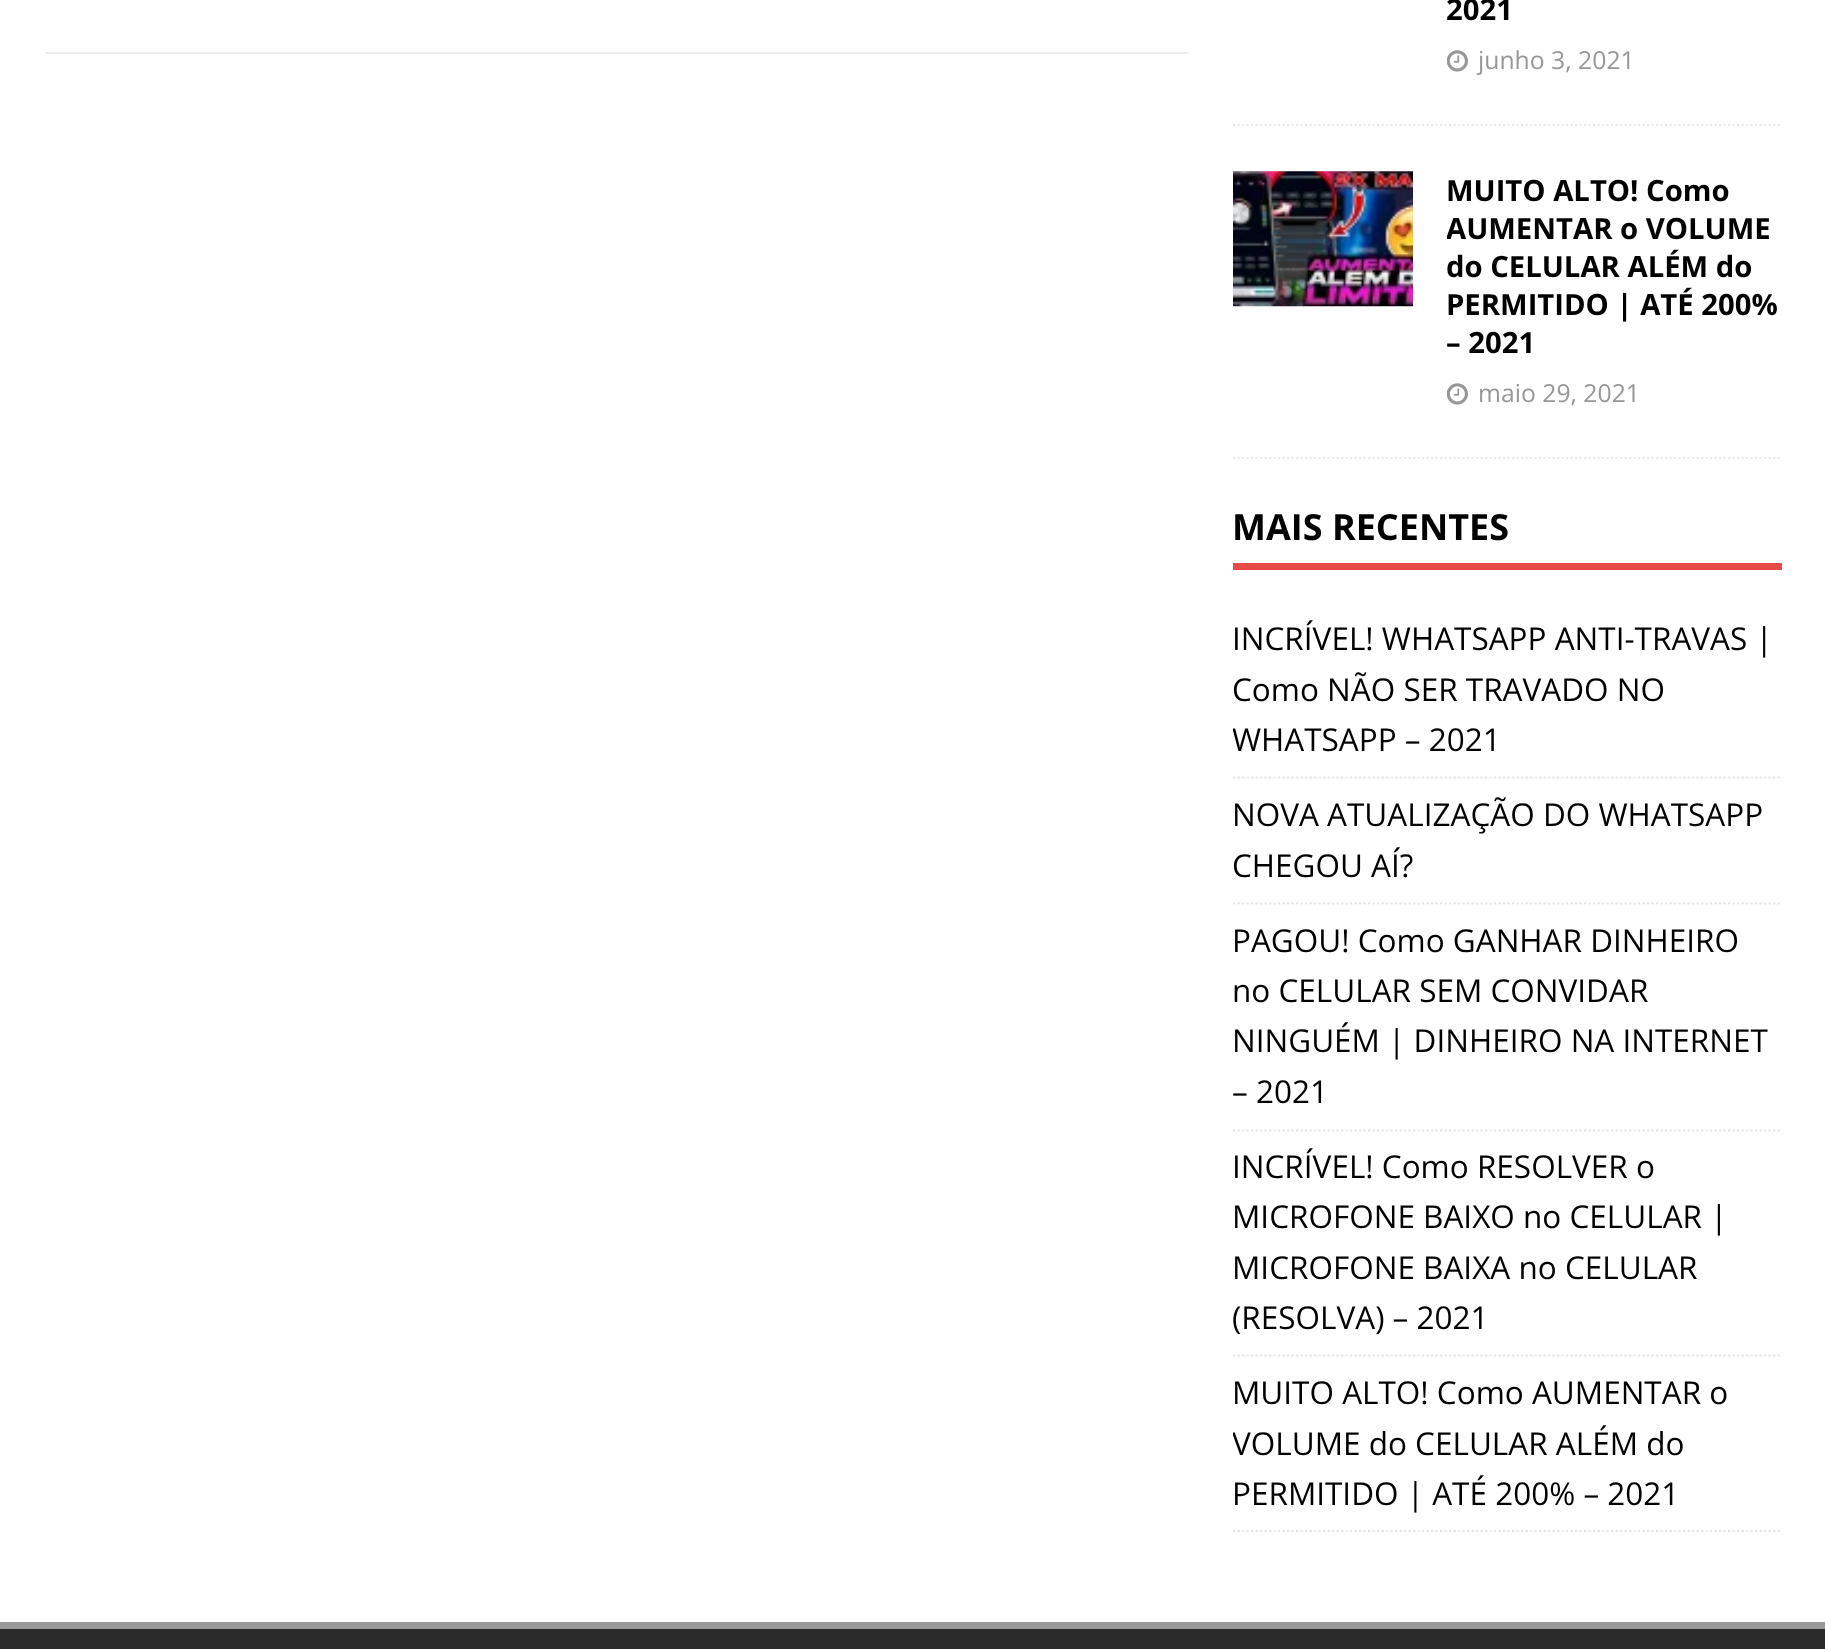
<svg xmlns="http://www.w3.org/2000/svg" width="1825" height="1649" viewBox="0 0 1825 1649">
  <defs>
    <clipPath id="clip1"><path d="M1233 0h549v459H1233z"/></clipPath>
    <clipPath id="clip2"><path d="M1233 504h549v1028H1233z"/></clipPath>
    <clipPath id="clip3"><path d="M1447 0h335v79H1447z"/></clipPath>
    <clipPath id="clip4"><path d="M1447 171h335v241H1447z"/></clipPath>
  </defs>
  <rect width="100%" height="100%" fill="#fff"/>
  <path d="M45 52h1143v2H45z" fill="#ebebeb"/>
  <path d="M1233 125H1782" fill="none" stroke="#ebebeb" stroke-width="2.2" stroke-dasharray="2.25 2.25"/>
  <image x="1447" y="50" width="21" height="22" href="img/1.png"/>
  <g clip-path="url(#clip1)">
    <path d="M1233 458H1782" fill="none" stroke="#ebebeb" stroke-width="2.2" stroke-dasharray="2.25 2.25"/>
  </g>
  <image x="1233" y="171" width="180" height="136" href="img/2.png"/>
  <image x="1447" y="383" width="21" height="22" href="img/1.png"/>
  <path d="M1233 563h549v7H1233z" fill="#e64946"/>
  <path d="M1233 777.5H1782" fill="none" stroke="#e5e5e5" stroke-width="2.2" stroke-dasharray="2.25 2.25"/>
  <path d="M1233 903.5H1782" fill="none" stroke="#e5e5e5" stroke-width="2.2" stroke-dasharray="2.25 2.25"/>
  <path d="M1233 1130.5H1782" fill="none" stroke="#e5e5e5" stroke-width="2.2" stroke-dasharray="2.25 2.25"/>
  <path d="M1233 1355.5H1782" fill="none" stroke="#e5e5e5" stroke-width="2.2" stroke-dasharray="2.25 2.25"/>
  <g clip-path="url(#clip2)">
    <path d="M1233 1531H1782" fill="none" stroke="#e5e5e5" stroke-width="2.2" stroke-dasharray="2.25 2.25"/>
  </g>
  <path d="M0 1629h1825v20H0z" fill="#2a2a2a"/>
  <path d="M0 1622h1825v7H0z" fill="#999"/>
  <g clip-path="url(#clip3)">
    <text x="1446" y="20" font-family="Open Sans" font-size="29.25" font-weight="bold" fill="#000">2021</text>
  </g>
  <text x="1478" y="69" font-family="Open Sans" font-size="24.75" fill="#979797">junho 3, 2021</text>
  <text x="1446" y="201" font-family="Open Sans" font-size="29.25" font-weight="bold" fill="#000">MUITO ALTO! Como</text>
  <g clip-path="url(#clip4)">
    <text x="1446" y="239" font-family="Open Sans" font-size="29.25" font-weight="bold" fill="#000">AUMENTAR o VOLUME</text>
  </g>
  <g font-family="Open Sans" font-size="29.25" font-weight="bold" fill="#000">
    <text x="1446" y="277">do CELULAR ALÉM do</text>
    <text x="1446" y="315">PERMITIDO | ATÉ 200%</text>
  </g>
  <g clip-path="url(#clip4)">
    <text x="1446" y="353" font-family="Open Sans" font-size="29.25" font-weight="bold" fill="#000">– 2021</text>
  </g>
  <text x="1478" y="402" font-family="Open Sans" font-size="24.75" fill="#979797">maio 29, 2021</text>
  <text x="1232" y="540" font-family="Open Sans" font-size="36" font-weight="bold" fill="#000">MAIS RECENTES</text>
  <g font-family="Open Sans" font-size="31.5" fill="#000">
    <text x="1232" y="650">INCRÍVEL! WHATSAPP ANTI-TRAVAS |</text>
    <text x="1232" y="701">Como NÃO SER TRAVADO NO</text>
  </g>
  <g clip-path="url(#clip2)">
    <text x="1232" y="751" font-family="Open Sans" font-size="31.5" fill="#000">WHATSAPP – 2021</text>
  </g>
  <g font-family="Open Sans" font-size="31.5" fill="#000">
    <text x="1232" y="826">NOVA ATUALIZAÇÃO DO WHATSAPP</text>
    <text x="1232" y="877">CHEGOU AÍ?</text>
    <text x="1232" y="952">PAGOU! Como GANHAR DINHEIRO</text>
    <text x="1232" y="1002">no CELULAR SEM CONVIDAR</text>
    <text x="1232" y="1052">NINGUÉM | DINHEIRO NA INTERNET</text>
    <text x="1232" y="1103">– 2021</text>
    <text x="1232" y="1178">INCRÍVEL! Como RESOLVER o</text>
    <text x="1232" y="1228">MICROFONE BAIXO no CELULAR |</text>
    <text x="1232" y="1279">MICROFONE BAIXA no CELULAR</text>
    <text x="1232" y="1329">(RESOLVA) – 2021</text>
    <text x="1232" y="1404">MUITO ALTO! Como AUMENTAR o</text>
  </g>
  <g clip-path="url(#clip2)">
    <text x="1232" y="1455" font-family="Open Sans" font-size="31.5" fill="#000">VOLUME do CELULAR ALÉM do</text>
  </g>
  <text x="1232" y="1505" font-family="Open Sans" font-size="31.5" fill="#000">PERMITIDO | ATÉ 200% – 2021</text>
</svg>
